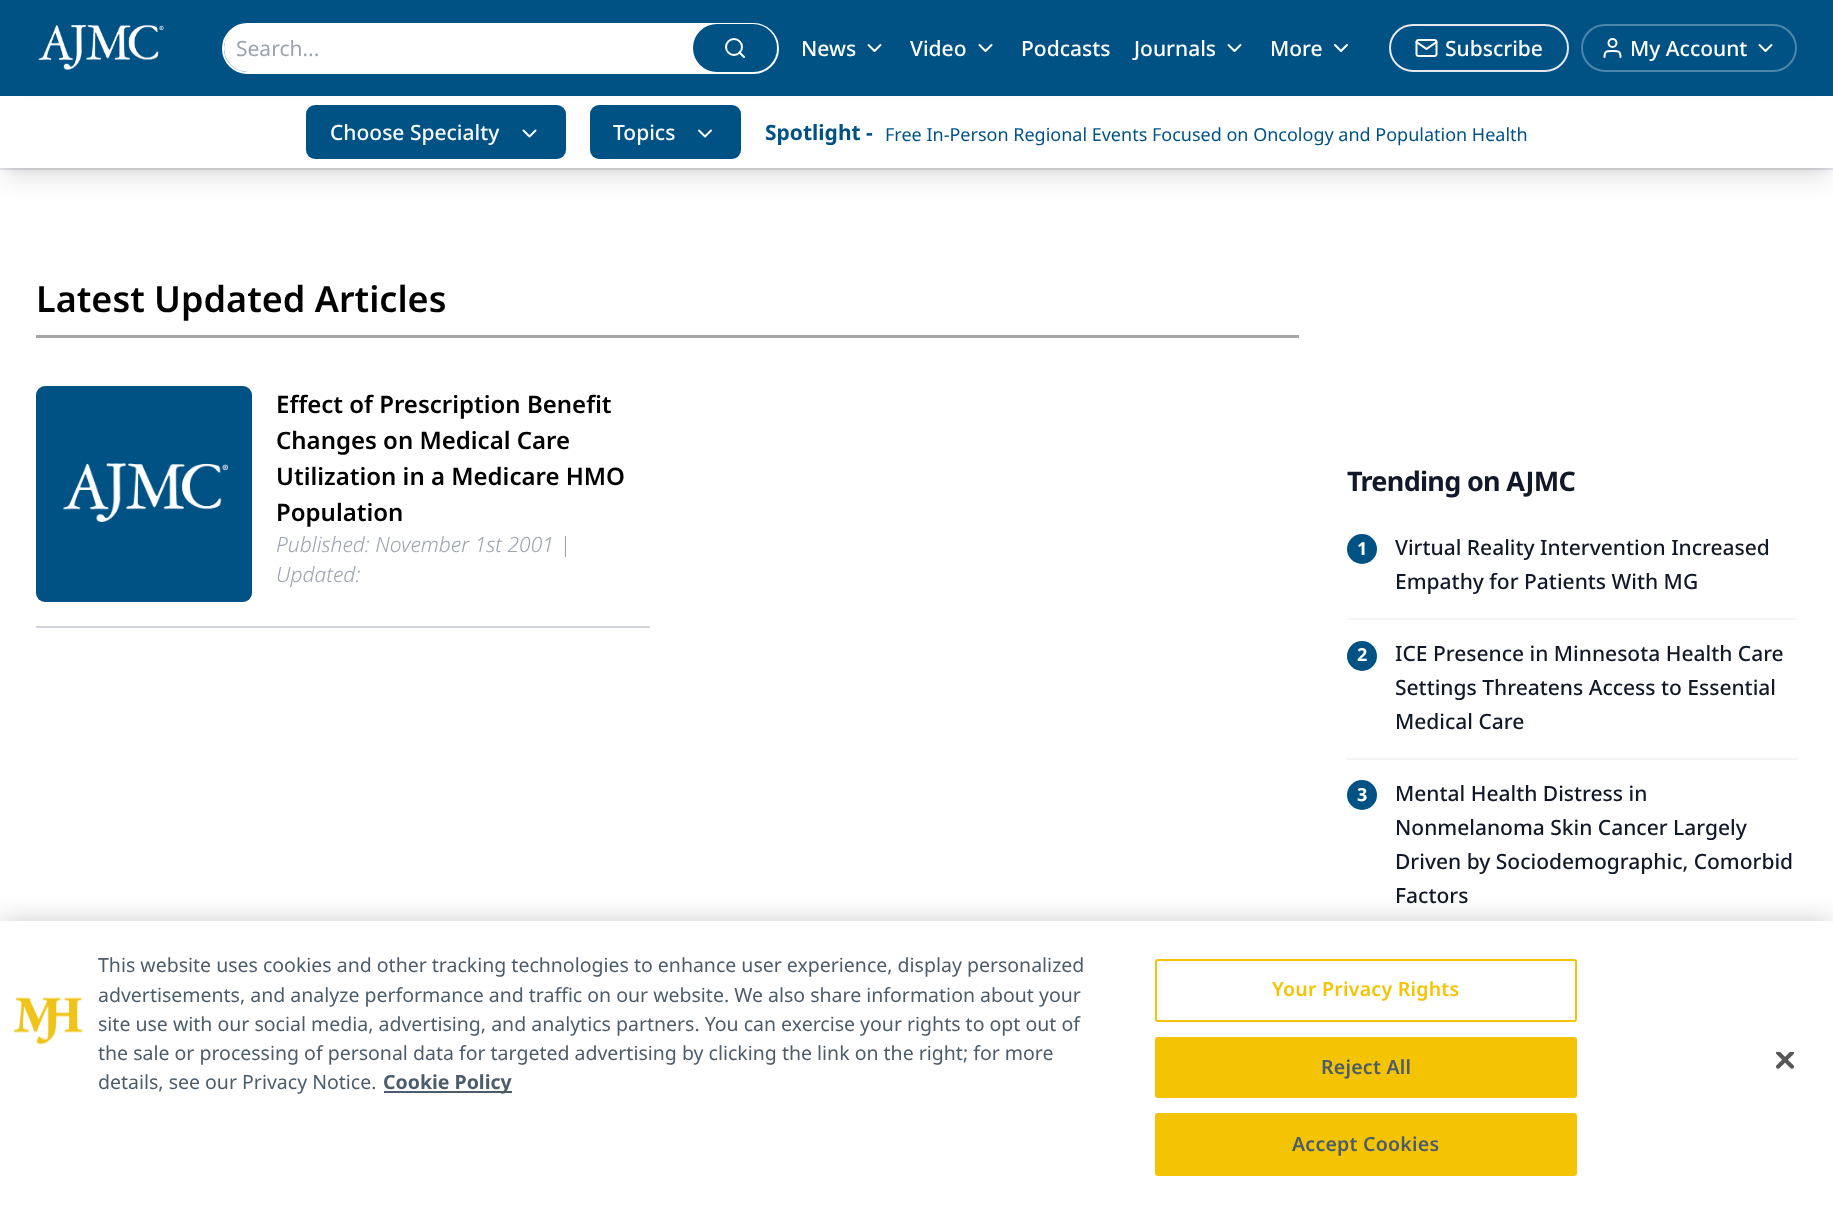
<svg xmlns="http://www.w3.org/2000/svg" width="1833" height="1206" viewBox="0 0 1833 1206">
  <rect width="100%" height="100%" fill="#fff"/>
  <path d="M0 0h1833v96H0z" fill="#005285"/>
  <path d="M0 168h1833v2H0z" fill="#e5e7eb"/>
  <image x="38" y="25" width="126" height="45" href="img/1.png"/>
  <rect x="223" y="24" width="555" height="49" rx="24.5" fill="none" stroke="#fff" stroke-width="2"/>
  <rect x="224" y="24" width="553" height="48" rx="24" fill="#fff"/>
  <rect x="693" y="24" width="84" height="48" rx="24" fill="#005285"/>
  <circle cx="734" cy="47" r="8" fill="none" stroke="#fff" stroke-width="2"/>
  <path d="M744 57L739.5 52.5" fill="none" stroke="#fff" stroke-width="2" stroke-linecap="round" stroke-linejoin="round"/>
  <path d="M868.5 45L874.5 51L880.5 45" fill="none" stroke="#fff" stroke-width="2" stroke-linecap="round" stroke-linejoin="round"/>
  <path d="M979.5 45L985.5 51L991.5 45" fill="none" stroke="#fff" stroke-width="2" stroke-linecap="round" stroke-linejoin="round"/>
  <path d="M1228.5 45L1234.5 51L1240.5 45" fill="none" stroke="#fff" stroke-width="2" stroke-linecap="round" stroke-linejoin="round"/>
  <path d="M1335 45L1341 51L1347 45" fill="none" stroke="#fff" stroke-width="2" stroke-linecap="round" stroke-linejoin="round"/>
  <rect x="1390" y="25" width="178" height="46" rx="23" fill="none" stroke="#e5e7eb" stroke-width="2"/>
  <image x="1415" y="39" width="23" height="18" href="img/2.png"/>
  <rect x="1582" y="25" width="214" height="46" rx="23" fill="none" stroke="#4d86aa" stroke-width="2"/>
  <path d="M1620.5 57C1620.5 50.5 1618 51 1612.5 51C1607 51 1604.5 50.5 1604.5 57" fill="none" stroke="#fff" stroke-width="2" stroke-linecap="round" stroke-linejoin="round"/>
  <circle cx="1612.5" cy="43" r="4" fill="none" stroke="#fff" stroke-width="2"/>
  <path d="M1759.5 45L1765.5 51L1771.5 45" fill="none" stroke="#fff" stroke-width="2" stroke-linecap="round" stroke-linejoin="round"/>
  <path d="M6 108h1821v60H6z" fill="#0000001a" filter="blur(4.5px)"/>
  <path d="M5 116h1824v63H5z" fill="#0000001a" filter="blur(11px)"/>
  <path d="M0 100h1833v68H0z" fill="#fff"/>
  <rect x="306" y="105" width="260" height="54" rx="9" fill="#005285"/>
  <path d="M523.5 130.5L529.5 136.5L535.5 130.5" fill="none" stroke="#f9fafb" stroke-width="2" stroke-linecap="round" stroke-linejoin="round"/>
  <rect x="590" y="105" width="151" height="54" rx="9" fill="#005285"/>
  <path d="M699 130.5L705 136.5L711 130.5" fill="none" stroke="#f9fafb" stroke-width="2" stroke-linecap="round" stroke-linejoin="round"/>
  <path d="M36 335h1263v3H36z" fill="#a4a6a8"/>
  <path d="M36 626h614v2H36z" fill="#d1d5db"/>
  <rect x="36" y="386" width="216" height="216" rx="9" fill="#005285"/>
  <image x="63" y="463" width="165" height="59" href="img/3.png"/>
  <circle cx="1362" cy="549" r="15" fill="#005285"/>
  <path d="M1347 618h450v2H1347z" fill="#f3f4f6"/>
  <circle cx="1362" cy="656" r="15" fill="#005285"/>
  <path d="M1347 758h450v2H1347z" fill="#f3f4f6"/>
  <circle cx="1362" cy="795" r="15" fill="#005285"/>
  <path d="M0 921h1833v285H0z" fill="#00000033" filter="blur(13.5px)"/>
  <path d="M0 921h1833v285H0z" fill="#fff"/>
  <image x="13" y="997" width="70" height="48" href="img/4.png"/>
  <path d="M384 1091h128v2H384z" fill="#4c5c6b"/>
  <rect x="1156" y="960" width="420" height="61" rx="2" fill="none" stroke="#f4c404" stroke-width="2"/>
  <rect x="1156" y="1038" width="420" height="59" rx="2" fill="#f4c404" stroke="#f4c404" stroke-width="2"/>
  <rect x="1156" y="1114" width="420" height="61" rx="2" fill="#f4c404" stroke="#f4c404" stroke-width="2"/>
  <image x="1776" y="1052" width="18" height="17" href="img/5.png"/>
  <text x="236" y="56" font-family="Noto Sans" font-size="21" fill="#9ca3af">Search...</text>
  <g font-family="Noto Sans" font-size="21" font-weight="500" fill="#fff">
    <text x="801" y="56">News</text>
    <text x="910" y="56">Video</text>
    <text x="1021" y="56">Podcasts</text>
    <text x="1134" y="56">Journals</text>
    <text x="1270" y="56">More</text>
    <text x="1445" y="56">Subscribe</text>
    <text x="1630" y="56">My Account</text>
  </g>
  <g font-family="Noto Sans" font-size="21" font-weight="500" fill="#f9fafb">
    <text x="330" y="140">Choose Specialty</text>
    <text x="613" y="140">Topics</text>
  </g>
  <text x="765" y="140" font-family="Noto Sans" font-size="21" font-weight="bold" fill="#005285">Spotlight -</text>
  <text x="885" y="141" font-family="Noto Sans" font-size="18" fill="#005285">Free In-Person Regional Events Focused on Oncology and Population Health</text>
  <text x="36" y="312" font-family="Noto Sans" font-size="36" font-weight="600" fill="#000">Latest Updated Articles</text>
  <g font-family="Noto Sans" font-size="24" font-weight="600" fill="#000">
    <text x="276" y="413">Effect of Prescription Benefit</text>
    <text x="276" y="449">Changes on Medical Care</text>
    <text x="276" y="485">Utilization in a Medicare HMO</text>
    <text x="276" y="521">Population</text>
  </g>
  <g font-family="Noto Sans" font-size="21" font-weight="300" font-style="italic" fill="#9ca3af">
    <text x="276" y="552">Published: November 1st 2001 |</text>
    <text x="276" y="582">Updated:</text>
  </g>
  <text x="1347" y="491" font-family="Noto Sans" font-size="27" font-weight="bold" letter-spacing="-0.7" fill="#111827">Trending on AJMC</text>
  <text x="1357" y="555" font-family="Noto Sans" font-size="18" font-weight="bold" fill="#fff">1</text>
  <g font-family="Noto Sans" font-size="21" font-weight="500" fill="#111827">
    <text x="1395" y="555">Virtual Reality Intervention Increased</text>
    <text x="1395" y="589">Empathy for Patients With MG</text>
  </g>
  <text x="1357" y="661" font-family="Noto Sans" font-size="18" font-weight="bold" fill="#fff">2</text>
  <g font-family="Noto Sans" font-size="21" font-weight="500" fill="#111827">
    <text x="1395" y="661">ICE Presence in Minnesota Health Care</text>
    <text x="1395" y="695">Settings Threatens Access to Essential</text>
    <text x="1395" y="729">Medical Care</text>
  </g>
  <text x="1357" y="801" font-family="Noto Sans" font-size="18" font-weight="bold" fill="#fff">3</text>
  <g font-family="Noto Sans" font-size="21" font-weight="500" fill="#111827">
    <text x="1395" y="801">Mental Health Distress in</text>
    <text x="1395" y="835">Nonmelanoma Skin Cancer Largely</text>
    <text x="1395" y="869">Driven by Sociodemographic, Comorbid</text>
    <text x="1395" y="903">Factors</text>
  </g>
  <g font-family="Noto Sans" font-size="19.5" fill="#4c5c6b">
    <text x="98" y="972">This website uses cookies and other tracking technologies to enhance user experience, display personalized</text>
    <text x="98" y="1002">advertisements, and analyze performance and traffic on our website. We also share information about your</text>
    <text x="98" y="1031">site use with our social media, advertising, and analytics partners. You can exercise your rights to opt out of</text>
    <text x="98" y="1060">the sale or processing of personal data for targeted advertising by clicking the link on the right; for more</text>
    <text x="98" y="1089">details, see our Privacy Notice.</text>
  </g>
  <text x="383" y="1089" font-family="Noto Sans" font-size="19.5" font-weight="bold" fill="#4c5c6b">Cookie Policy</text>
  <text x="1272" y="996" font-family="Noto Sans" font-size="19.5" font-weight="600" letter-spacing="0.25" fill="#f4c404">Your Privacy Rights</text>
  <g font-family="Noto Sans" font-size="19.5" font-weight="600" letter-spacing="0.25" fill="#4c5c6b">
    <text x="1321" y="1074">Reject All</text>
    <text x="1292" y="1151">Accept Cookies</text>
  </g>
</svg>
